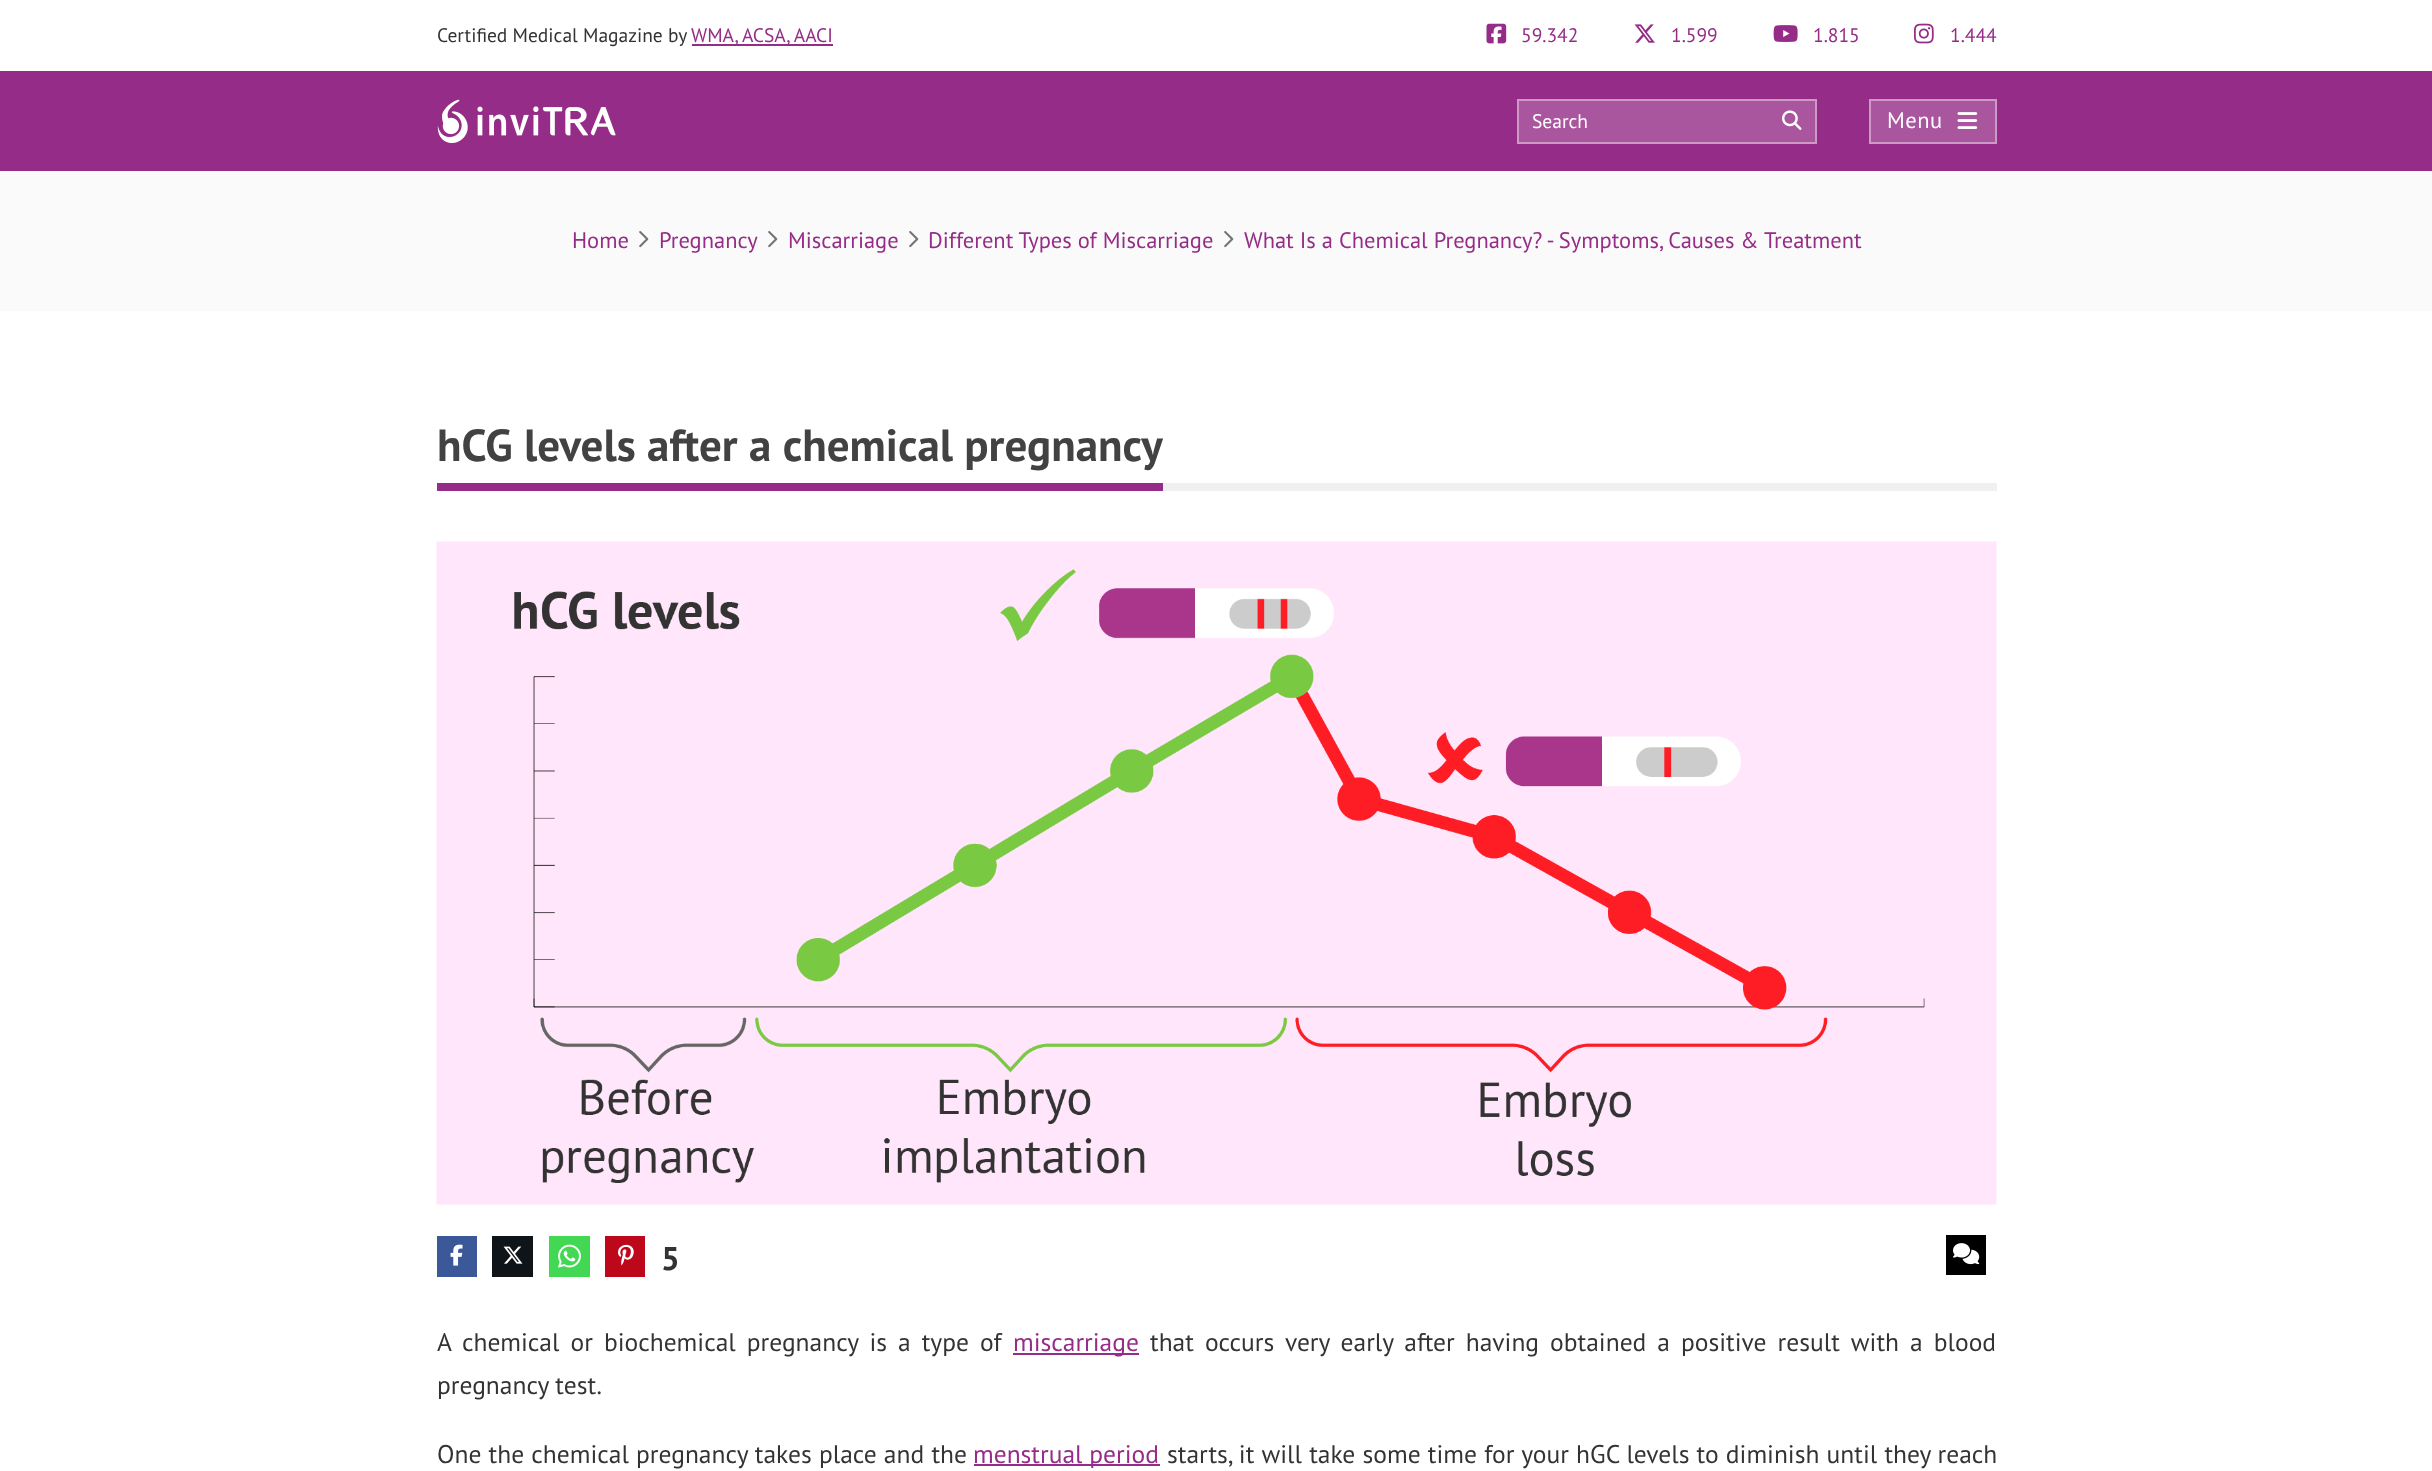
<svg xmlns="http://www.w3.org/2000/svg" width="2432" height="1471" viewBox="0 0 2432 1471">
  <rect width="100%" height="100%" fill="#fff"/>
  <path d="M692 44h141v2H692z" fill="#952c87"/>
  <image x="1486" y="23" width="21" height="21" href="img/1.png"/>
  <image x="1634" y="24" width="21" height="19" href="img/2.png"/>
  <image x="1773" y="25" width="25" height="17" href="img/3.png"/>
  <image x="1914" y="23" width="20" height="21" href="img/4.png"/>
  <path d="M0 71h2432v100H0z" fill="#952c87"/>
  <image x="437" y="99" width="179" height="45" href="img/5.png"/>
  <path d="M1519 101h296v41H1519z" fill="#aa569f"/>
  <path d="M1518 100h298v43H1518z" fill="none" stroke="#cc9ac5" stroke-width="2"/>
  <image x="1782" y="110" width="20" height="20" href="img/6.png"/>
  <path d="M1871 101h124v41H1871z" fill="#aa569f"/>
  <image x="1957" y="112" width="21" height="17" href="img/7.png"/>
  <path d="M1870 100h126v43H1870z" fill="none" stroke="#cc9ac5" stroke-width="2"/>
  <path d="M0 171h2432v140H0z" fill="#fafafa"/>
  <image x="639" y="231" width="10" height="17" href="img/8.png"/>
  <image x="768" y="231" width="10" height="17" href="img/8.png"/>
  <image x="909" y="231" width="10" height="17" href="img/8.png"/>
  <image x="1224" y="231" width="10" height="17" href="img/8.png"/>
  <path d="M437 483h726v8H437z" fill="#952c87"/>
  <path d="M1163 483h834v8H1163z" fill="#f0f0f0"/>
  <image x="436" y="541" width="1561" height="664" href="img/9.png"/>
  <path d="M437 1236h40v41H437z" fill="#3b5998"/>
  <image x="450" y="1244" width="13" height="22" href="img/10.png"/>
  <path d="M492 1236h41v41H492z" fill="#0f1419"/>
  <image x="503" y="1246" width="20" height="18" href="img/11.png"/>
  <path d="M549 1236h41v41H549z" fill="#43d854"/>
  <image x="558" y="1244" width="23" height="24" href="img/12.png"/>
  <path d="M605 1236h40v41H605z" fill="#bd081c"/>
  <image x="618" y="1244" width="16" height="22" href="img/13.png"/>
  <path d="M1946 1235h40v40H1946z" fill="#000"/>
  <image x="1953" y="1243" width="27" height="22" href="img/14.png"/>
  <path d="M1013 1353h126v2H1013z" fill="#952c87"/>
  <path d="M974 1464h186v2H974z" fill="#952c87"/>
  <text x="437" y="42" font-family="PT Sans" font-size="19.5" fill="#333">Certified Medical Magazine by</text>
  <g font-family="PT Sans" font-size="19.5" fill="#952c87">
    <text x="691" y="42">WMA, ACSA, AACI</text>
    <text x="1521" y="42">59.342</text>
    <text x="1671" y="42">1.599</text>
    <text x="1813" y="42">1.815</text>
    <text x="1950" y="42">1.444</text>
  </g>
  <text x="1532" y="128" font-family="PT Sans" font-size="19.5" fill="#fff">Search</text>
  <text x="1887" y="128" font-family="PT Sans" font-size="22.5" letter-spacing="0.5" fill="#fff">Menu</text>
  <g font-family="PT Sans" font-size="22.5" fill="#952c87">
    <text x="572" y="248">Home</text>
    <text x="659" y="248">Pregnancy</text>
    <text x="788" y="248">Miscarriage</text>
    <text x="928" y="248">Different Types of Miscarriage</text>
    <text x="1244" y="248">What Is a Chemical Pregnancy? - Symptoms, Causes &amp; Treatment</text>
  </g>
  <text x="437" y="461" font-family="PT Sans" font-size="45" font-weight="bold" fill="#424242">hCG levels after a chemical pregnancy</text>
  <text x="661" y="1270" font-family="PT Sans" font-size="33" font-weight="bold" fill="#333">5</text>
  <text x="437" y="1351" word-spacing="4.25" font-family="PT Sans" font-size="25.5" fill="#333">A chemical or biochemical pregnancy is a type of</text>
  <text x="1013" y="1351" font-family="PT Sans" font-size="25.5" fill="#952c87">miscarriage</text>
  <g font-family="PT Sans" font-size="25.5" fill="#333">
    <text x="1150" y="1351" word-spacing="4.25">that occurs very early after having obtained a positive result with a blood</text>
    <text x="437" y="1394">pregnancy test.</text>
    <text x="437" y="1463" word-spacing="0.4">One the chemical pregnancy takes place and the</text>
  </g>
  <text x="973" y="1463" font-family="PT Sans" font-size="25.5" fill="#952c87">menstrual period</text>
  <text x="1167" y="1463" word-spacing="0.4" font-family="PT Sans" font-size="25.5" fill="#333">starts, it will take some time for your hGC levels to diminish until they reach</text>
</svg>
